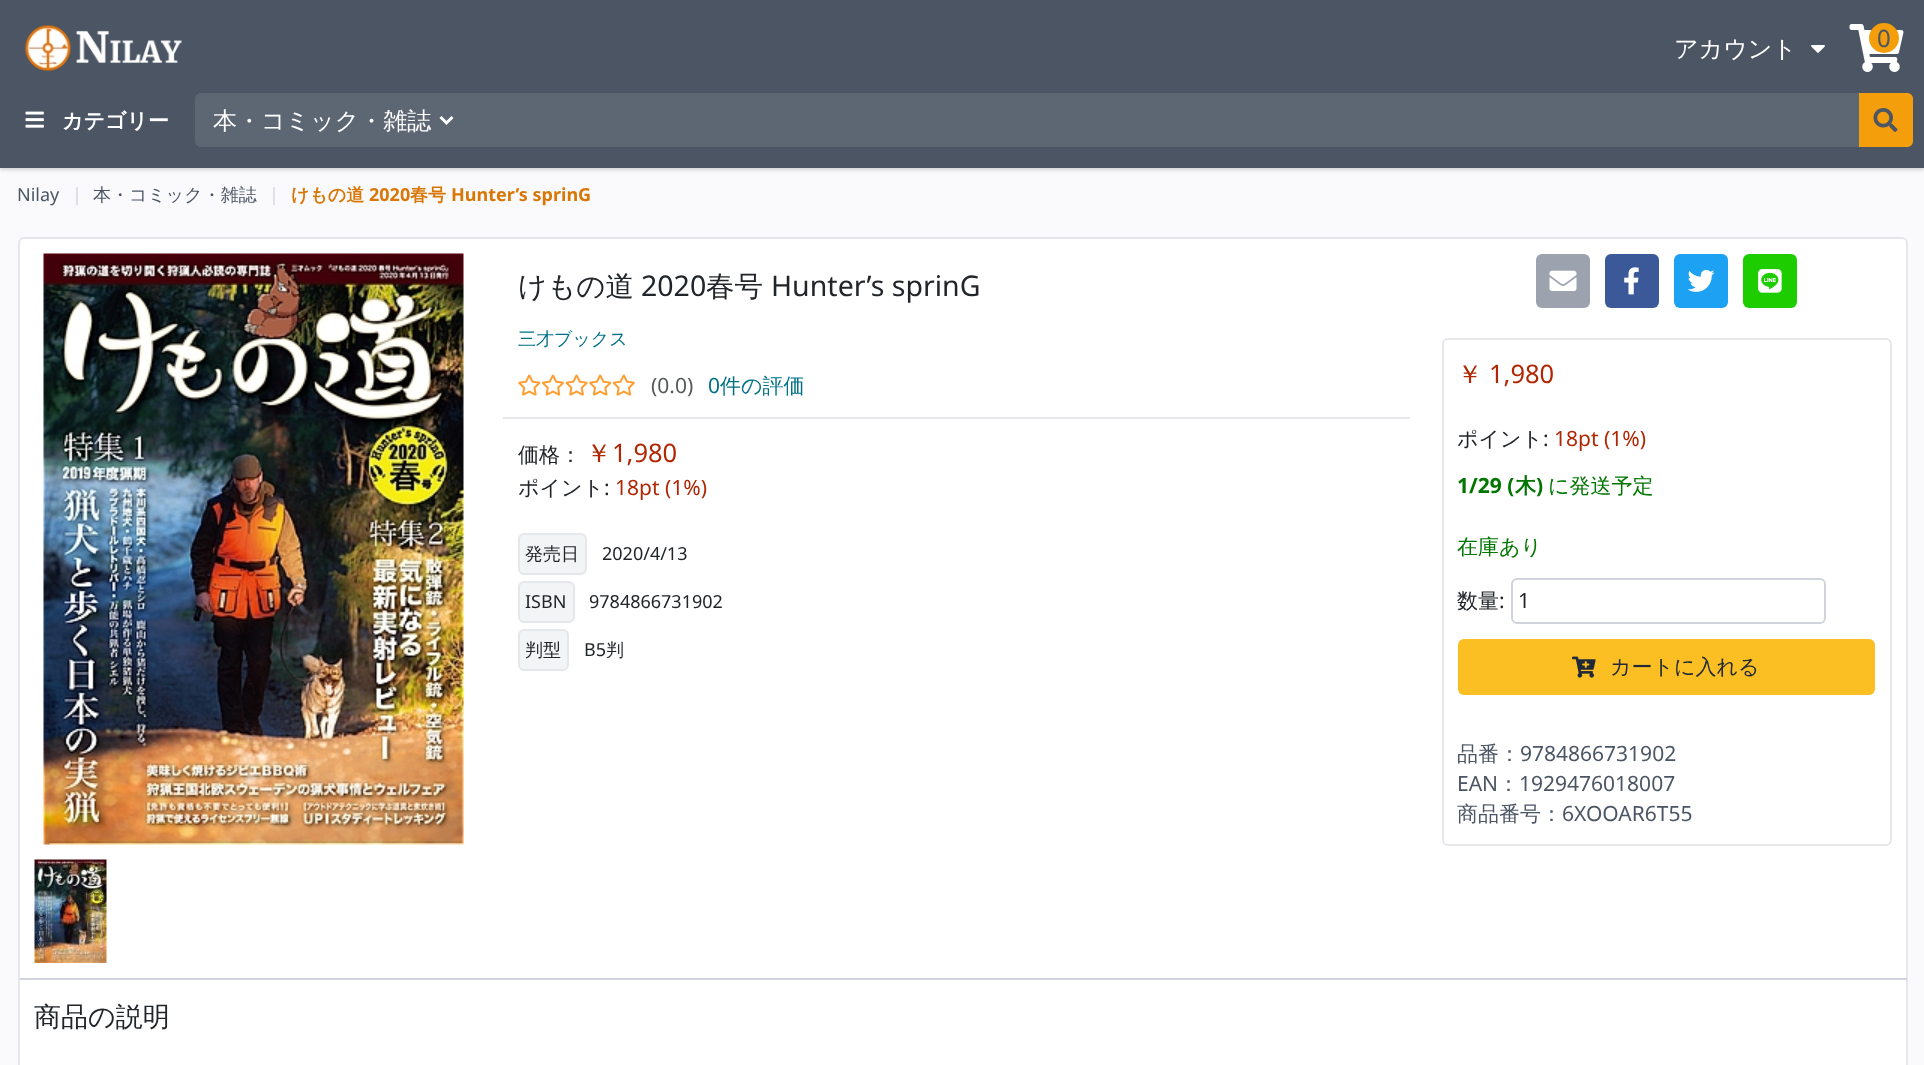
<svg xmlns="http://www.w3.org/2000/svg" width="1924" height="1065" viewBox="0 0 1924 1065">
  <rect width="100%" height="100%" fill="#fafafd"/>
  <path d="M0 2h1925v168H0z" fill="#0000000f" filter="blur(1.5px)"/>
  <path d="M0 2h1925v168H0z" fill="#0000001a" filter="blur(2px)"/>
  <path d="M0 0h1924v168H0z" fill="#4b5563"/>
  <image x="25" y="25" width="157" height="46" href="img/1.png"/>
  <image x="1811" y="45" width="14" height="8" href="img/2.png"/>
  <image x="1849" y="24" width="55" height="48" href="img/3.png"/>
  <circle cx="1884" cy="38" r="15" fill="#f59e0b"/>
  <image x="25" y="111" width="19" height="17" href="img/4.png"/>
  <path d="M201 93H459V147H201C197.5 147 195 144.5 195 141V99C195 95.5 197.5 93 201 93Z" fill="#5d6673"/>
  <path d="M440.5 117L446.5 123L452.5 117" fill="none" stroke="#fff" stroke-width="3"/>
  <path d="M459 93h1400v54H459z" fill="#5d6673"/>
  <path d="M1859 93H1907C1910.5 93 1913 95.5 1913 99V141C1913 144.5 1910.5 147 1907 147H1859Z" fill="#f59e0b"/>
  <image x="1873" y="108" width="25" height="24" href="img/5.png"/>
  <rect x="19" y="238" width="1888" height="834" rx="5" fill="#fff" stroke="#e5e7eb" stroke-width="2"/>
  <image x="43" y="253" width="421" height="592" href="img/6.png"/>
  <image x="34" y="859" width="73" height="104" href="img/7.png"/>
  <image x="518" y="374" width="117" height="22" href="img/8.png"/>
  <path d="M503 417h907v2H503z" fill="#e6e8eb"/>
  <rect x="519" y="534" width="67" height="40" rx="5" fill="#f3f4f6" stroke="#e5e7eb" stroke-width="2"/>
  <rect x="519" y="582" width="55" height="40" rx="5" fill="#f3f4f6" stroke="#e5e7eb" stroke-width="2"/>
  <rect x="519" y="630" width="49" height="40" rx="5" fill="#f3f4f6" stroke="#e5e7eb" stroke-width="2"/>
  <rect x="1536" y="254" width="54" height="54" rx="6" fill="#9ca3af"/>
  <image x="1549" y="270" width="28" height="21" href="img/9.png"/>
  <rect x="1605" y="254" width="54" height="54" rx="6" fill="#3b5998"/>
  <image x="1624" y="267" width="15" height="28" href="img/10.png"/>
  <rect x="1674" y="254" width="54" height="54" rx="6" fill="#1da1f2"/>
  <image x="1687" y="269" width="28" height="23" href="img/11.png"/>
  <rect x="1743" y="254" width="54" height="54" rx="6" fill="#1dcd00"/>
  <image x="1758" y="269" width="24" height="24" href="img/12.png"/>
  <rect x="1443" y="339" width="448" height="506" rx="5" fill="none" stroke="#e5e7eb" stroke-width="2"/>
  <rect x="1512" y="579" width="313" height="44" rx="5" fill="none" stroke="#d1d5db" stroke-width="2"/>
  <rect x="1458" y="639" width="417" height="56" rx="6" fill="#fbbf24"/>
  <image x="1572" y="656" width="24" height="22" href="img/13.png"/>
  <path d="M20 978h1887v2H20z" fill="#d1d5db"/>
  <text x="1674" y="57" font-family="WenQuanYi Zen Hei" font-size="24" font-weight="500" fill="#fff">アカウント</text>
  <text x="1877" y="47" font-family="Noto Sans" font-size="24" fill="#4b5563">0</text>
  <text x="62" y="128" font-family="WenQuanYi Zen Hei" font-size="21" font-weight="bold" fill="#fff">カテゴリー</text>
  <text x="213" y="129" font-family="WenQuanYi Zen Hei" font-size="24" font-weight="500" fill="#fff">本・コミック・雑誌</text>
  <text x="17" y="201" font-family="Noto Sans" font-size="18" fill="#4b5563">Nilay</text>
  <text x="72" y="201" font-family="Noto Sans" font-size="18" fill="#d1d5db">|</text>
  <text x="93" y="201" font-family="WenQuanYi Zen Hei" font-size="18" font-weight="500" fill="#4b5563">本・コミック・雑誌</text>
  <text x="269" y="201" font-family="Noto Sans" font-size="18" fill="#d1d5db">|</text>
  <text x="291" y="201" font-family="WenQuanYi Zen Hei" font-size="18" font-weight="bold" fill="#d97706">けもの道</text>
  <text x="369" y="201" font-family="Noto Sans" font-size="18" font-weight="bold" fill="#d97706">2020</text>
  <text x="410" y="201" font-family="WenQuanYi Zen Hei" font-size="18" font-weight="bold" fill="#d97706">春号</text>
  <text x="451" y="201" font-family="Noto Sans" font-size="18" font-weight="bold" fill="#d97706">Hunter’s sprinG</text>
  <text x="518" y="296" font-family="WenQuanYi Zen Hei" font-size="28.5" font-weight="500" fill="#212529">けもの道</text>
  <text x="641" y="296" font-family="Noto Sans" font-size="28.5" fill="#212529">2020</text>
  <text x="706" y="296" font-family="WenQuanYi Zen Hei" font-size="28.5" font-weight="500" fill="#212529">春号</text>
  <text x="771" y="296" font-family="Noto Sans" font-size="28.5" fill="#212529">Hunter’s sprinG</text>
  <text x="518" y="345" font-family="WenQuanYi Zen Hei" font-size="18" font-weight="500" fill="#007185">三才ブックス</text>
  <text x="651" y="393" font-family="Noto Sans" font-size="21" fill="#565959">(0.0)</text>
  <text x="708" y="393" font-family="Noto Sans" font-size="21" fill="#007185">0</text>
  <text x="720" y="393" font-family="WenQuanYi Zen Hei" font-size="21" font-weight="500" fill="#007185">件の評価</text>
  <text x="518" y="462" font-family="WenQuanYi Zen Hei" font-size="21" font-weight="500" fill="#212529">価格：</text>
  <text x="586" y="462" font-family="WenQuanYi Zen Hei" font-size="25.5" font-weight="500" fill="#b12704">￥</text>
  <text x="612" y="462" font-family="Noto Sans" font-size="25.5" fill="#b12704">1,980</text>
  <text x="518" y="495" font-family="WenQuanYi Zen Hei" font-size="21" font-weight="500" fill="#212529">ポイント</text>
  <text x="604" y="495" font-family="Noto Sans" font-size="21" fill="#212529">:</text>
  <text x="615" y="495" font-family="Noto Sans" font-size="21" fill="#b12704">18pt (1%)</text>
  <text x="525" y="560" font-family="WenQuanYi Zen Hei" font-size="18" font-weight="500" fill="#212529">発売日</text>
  <g font-family="Noto Sans" font-size="18" fill="#212529">
    <text x="602" y="560">2020/4/13</text>
    <text x="525" y="608">ISBN</text>
    <text x="589" y="608">9784866731902</text>
  </g>
  <text x="525" y="656" font-family="WenQuanYi Zen Hei" font-size="18" font-weight="500" fill="#212529">判型</text>
  <text x="584" y="656" font-family="Noto Sans" font-size="18" fill="#212529">B5</text>
  <text x="606" y="656" font-family="WenQuanYi Zen Hei" font-size="18" font-weight="500" fill="#212529">判</text>
  <text x="1457" y="383" font-family="WenQuanYi Zen Hei" font-size="25.5" font-weight="500" fill="#b12704">￥</text>
  <text x="1489" y="383" font-family="Noto Sans" font-size="25.5" fill="#b12704">1,980</text>
  <text x="1457" y="446" font-family="WenQuanYi Zen Hei" font-size="21" font-weight="500" fill="#212529">ポイント</text>
  <text x="1543" y="446" font-family="Noto Sans" font-size="21" fill="#212529">:</text>
  <text x="1554" y="446" font-family="Noto Sans" font-size="21" fill="#b12704">18pt (1%)</text>
  <text x="1457" y="493" font-family="Noto Sans" font-size="21" font-weight="bold" fill="#007600">1/29 (</text>
  <text x="1515" y="493" font-family="WenQuanYi Zen Hei" font-size="21" font-weight="bold" fill="#007600">木</text>
  <text x="1536" y="493" font-family="Noto Sans" font-size="21" font-weight="bold" fill="#007600">)</text>
  <g font-family="WenQuanYi Zen Hei" font-size="21" font-weight="500" fill="#007600">
    <text x="1548" y="493">に発送予定</text>
    <text x="1457" y="554">在庫あり</text>
  </g>
  <text x="1457" y="608" font-family="WenQuanYi Zen Hei" font-size="21" font-weight="500" fill="#212529">数量</text>
  <g font-family="Noto Sans" font-size="21" fill="#212529">
    <text x="1499" y="608">:</text>
    <text x="1518" y="608">1</text>
  </g>
  <text x="1610" y="674" font-family="WenQuanYi Zen Hei" font-size="21" font-weight="500" fill="#1f2937">カートに入れる</text>
  <text x="1457" y="761" font-family="WenQuanYi Zen Hei" font-size="21" font-weight="500" fill="#4b5563">品番：</text>
  <g font-family="Noto Sans" font-size="21" fill="#4b5563">
    <text x="1520" y="761">9784866731902</text>
    <text x="1457" y="791">EAN</text>
  </g>
  <text x="1498" y="791" font-family="WenQuanYi Zen Hei" font-size="21" font-weight="500" fill="#4b5563">：</text>
  <text x="1519" y="791" font-family="Noto Sans" font-size="21" fill="#4b5563">1929476018007</text>
  <text x="1457" y="821" font-family="WenQuanYi Zen Hei" font-size="21" font-weight="500" fill="#4b5563">商品番号：</text>
  <text x="1562" y="821" font-family="Noto Sans" font-size="21" fill="#4b5563">6XOOAR6T55</text>
  <text x="34" y="1026" font-family="WenQuanYi Zen Hei" font-size="27" font-weight="500" fill="#212529">商品の説明</text>
</svg>
